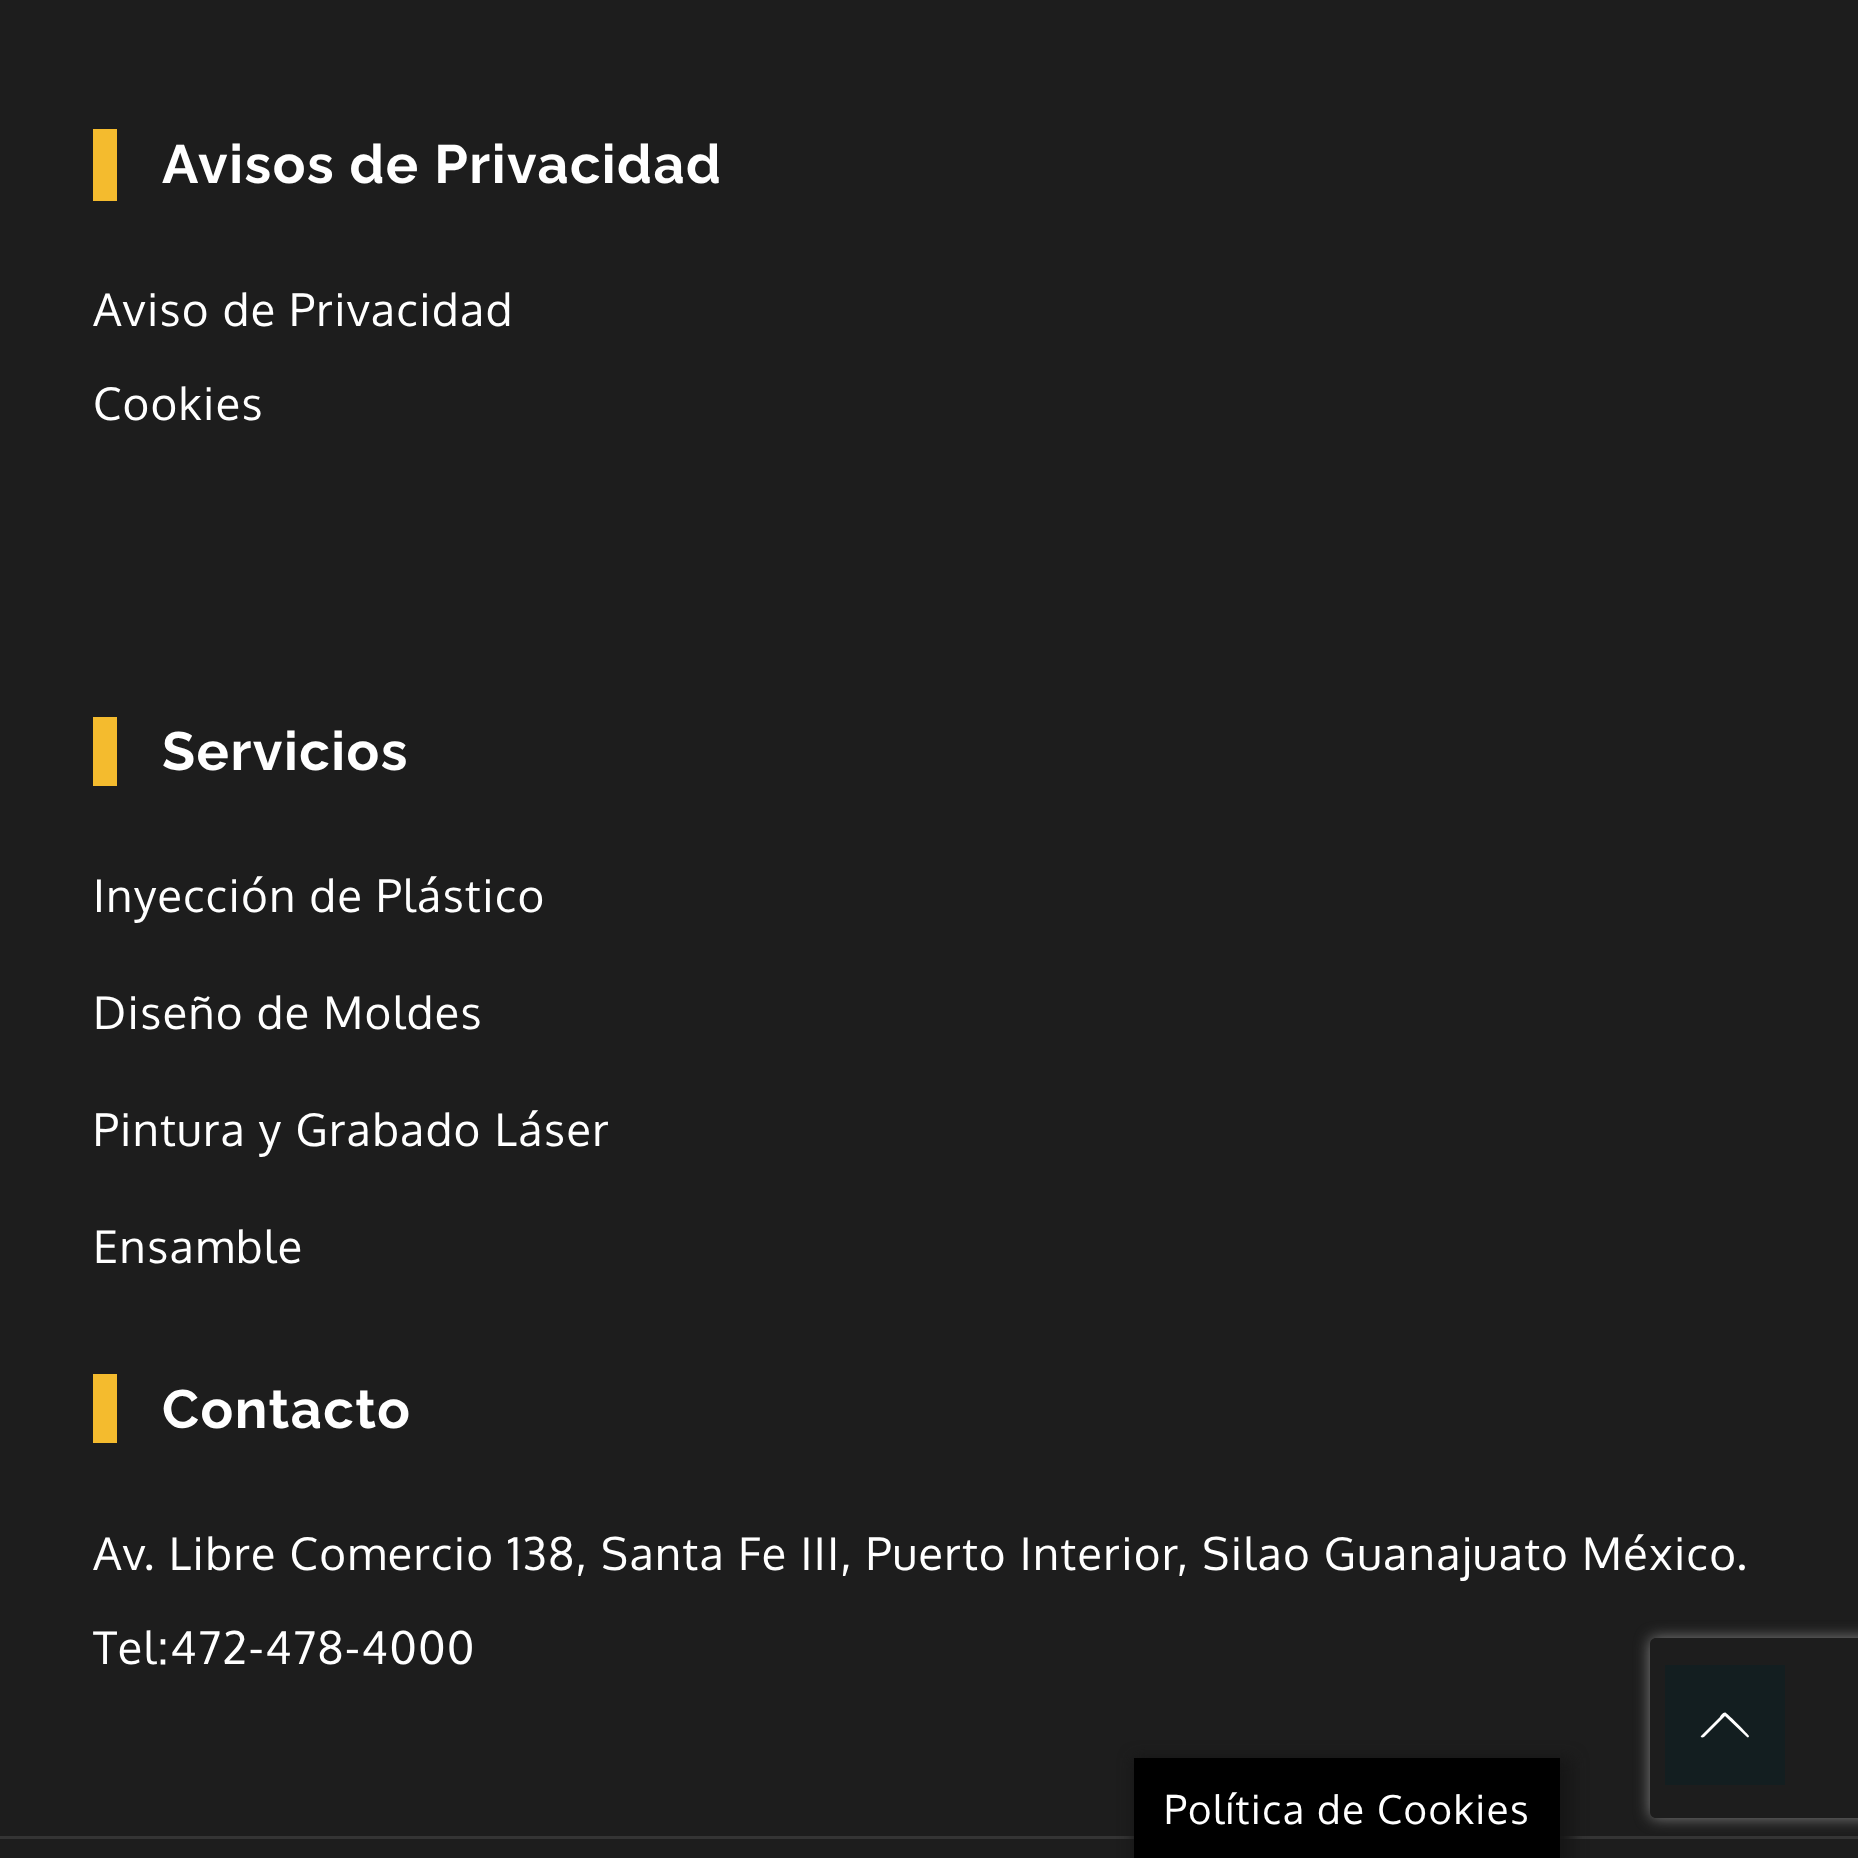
<svg xmlns="http://www.w3.org/2000/svg" width="1858" height="1858" viewBox="0 0 1858 1858">
  <defs>
    <clipPath id="clip1"><path d="M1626 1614H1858V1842H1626ZM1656 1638H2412C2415.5 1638 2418 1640.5 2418 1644V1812C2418 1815.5 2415.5 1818 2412 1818H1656C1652.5 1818 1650 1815.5 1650 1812V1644C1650 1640.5 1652.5 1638 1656 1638Z" clip-rule="evenodd"/></clipPath>
  </defs>
  <rect width="100%" height="100%" fill="#1d1d1d"/>
  <path d="M93 129h24v72H93z" fill="#f4bb2e"/>
  <path d="M93 717h24v69H93z" fill="#f4bb2e"/>
  <path d="M93 1374h24v69H93z" fill="#f4bb2e"/>
  <path d="M0 1836h1858v3H0z" fill="#343434"/>
  <g clip-path="url(#clip1)">
    <rect x="1650" y="1638" width="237" height="180" rx="6" fill="#808080" filter="blur(7.5px)"/>
  </g>
  <path d="M1665 1665h120v120H1665z" fill="#131e20"/>
  <path d="M1704 1737L1725 1716L1747 1737C1748 1738 1749 1737 1749 1736C1749 1735 1728 1714 1726 1713C1724 1711 1720 1716 1720 1717L1701 1736C1700 1737 1702 1738 1704 1737Z" fill="#fff"/>
  <path d="M1134 1758h438v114H1134z" fill="#161616" filter="blur(7.5px)"/>
  <path d="M1134 1758h426v100H1134z" fill="#000"/>
  <text x="162" y="183" font-family="Raleway" font-size="54" font-weight="bold" letter-spacing="1.5" fill="#fff">Avisos de Privacidad</text>
  <g font-family="Oxygen" font-size="45" letter-spacing="1.5" fill="#fff">
    <text x="93" y="326">Aviso de Privacidad</text>
    <text x="93" y="420">Cookies</text>
  </g>
  <text x="162" y="770" font-family="Raleway" font-size="54" font-weight="bold" letter-spacing="1.5" fill="#fff">Servicios</text>
  <g font-family="Oxygen" font-size="45" letter-spacing="1.5" fill="#fff">
    <text x="93" y="912">Inyección de Plástico</text>
    <text x="93" y="1029">Diseño de Moldes</text>
    <text x="93" y="1146">Pintura y Grabado Láser</text>
    <text x="93" y="1263">Ensamble</text>
  </g>
  <text x="162" y="1428" font-family="Raleway" font-size="54" font-weight="bold" letter-spacing="1.5" fill="#fff">Contacto</text>
  <g font-family="Oxygen" font-size="45" letter-spacing="1.5" fill="#fff">
    <text x="93" y="1570">Av. Libre Comercio 138, Santa Fe III, Puerto Interior, Silao Guanajuato México.</text>
    <text x="93" y="1664">Tel:472-478-4000</text>
  </g>
  <text x="1164" y="1824" font-family="Oxygen" font-size="40" letter-spacing="1.5" fill="#fff">Política de Cookies</text>
</svg>
